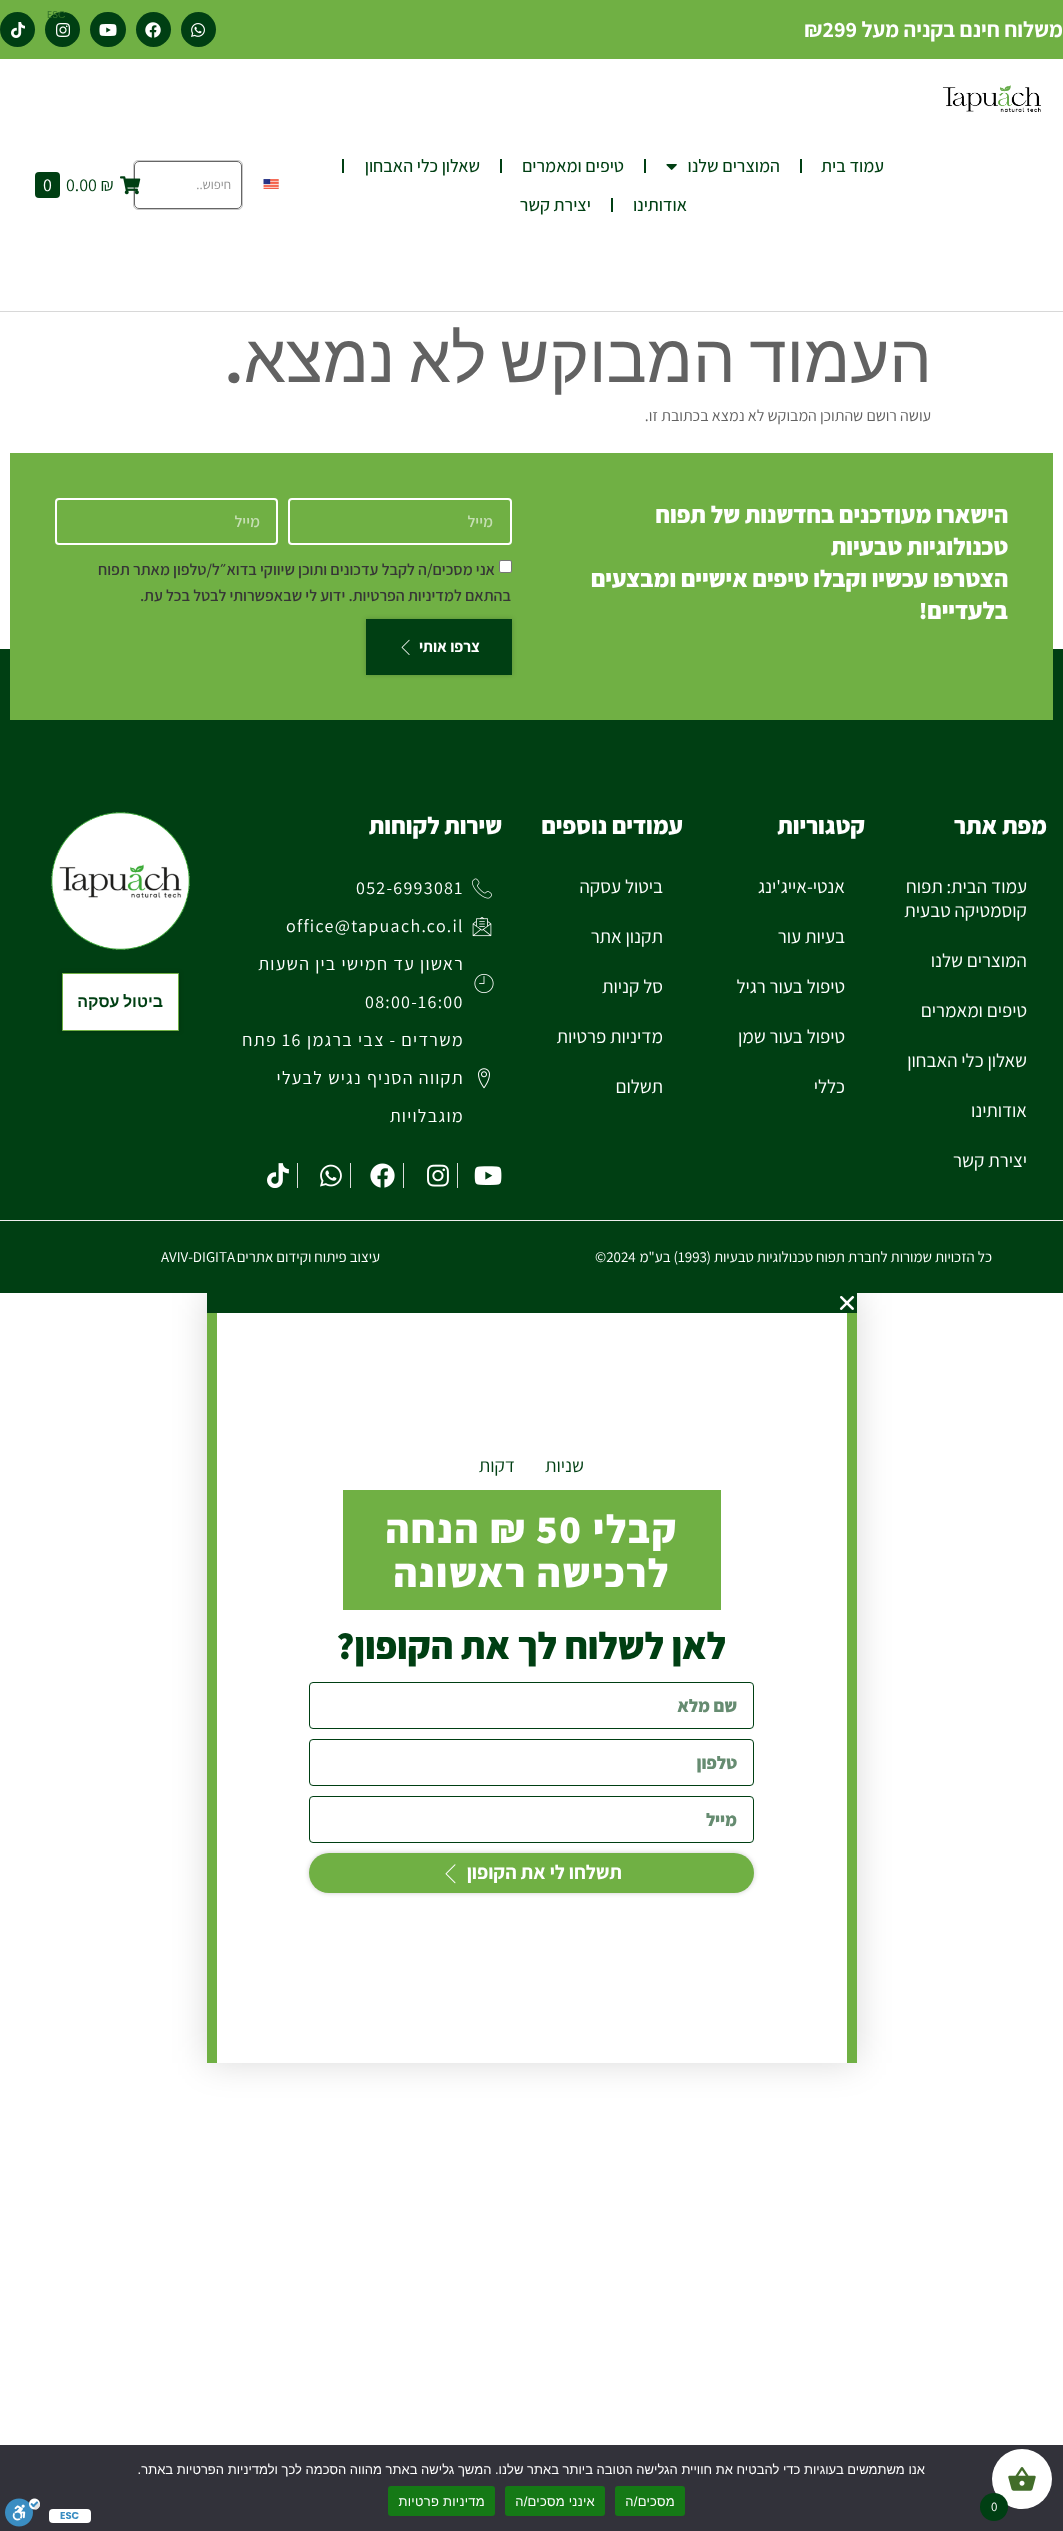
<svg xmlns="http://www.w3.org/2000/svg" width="1063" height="2531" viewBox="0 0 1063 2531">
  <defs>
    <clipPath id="clip1"><path d="M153 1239H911V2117H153ZM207 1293H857V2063H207Z" clip-rule="evenodd"/></clipPath>
    <clipPath id="clip2"><path d="M207 1313h650v750H207z"/></clipPath>
  </defs>
  <rect width="100%" height="100%" fill="#fff"/>
  <path d="M0 0h1063v59H0z" fill="#70b044"/>
  <circle cx="198.5" cy="29.5" r="17.5" fill="#003f13"/>
  <image x="191" y="23" width="14" height="14" href="img/2.png"/>
  <circle cx="153.5" cy="29.5" r="17.5" fill="#003f13"/>
  <image x="145" y="22" width="16" height="16" href="img/3.png"/>
  <rect x="90" y="12" width="36" height="35" rx="17.5" fill="#003f13"/>
  <image x="99" y="24" width="18" height="12" href="img/4.png"/>
  <circle cx="62.5" cy="29.5" r="17.5" fill="#003f13"/>
  <image x="56" y="23" width="14" height="14" href="img/5.png"/>
  <circle cx="17.5" cy="29.5" r="17.5" fill="#003f13"/>
  <image x="11" y="22" width="14" height="16" href="img/6.png"/>
  <path d="M0 311h1063v1H0z" fill="#d8d8d8"/>
  <image x="942" y="85" width="99" height="27" href="img/7.png"/>
  <path d="M800 159h2v14H800z" fill="#003f13"/>
  <image x="666" y="164" width="11" height="6" href="img/8.png"/>
  <path d="M644 159h2v14H644z" fill="#003f13"/>
  <path d="M500 159h2v14H500z" fill="#003f13"/>
  <path d="M342 159h2v14H342z" fill="#003f13"/>
  <path d="M611 198h2v14H611z" fill="#003f13"/>
  <image x="263" y="179" width="16" height="10" href="img/9.png"/>
  <rect x="133.5" y="160.5" width="109" height="49" rx="4.5" fill="#f8f8f8" stroke="#c9c9c9"/>
  <rect x="134.5" y="161.5" width="107" height="47" rx="4.5" fill="#fff" stroke="#666"/>
  <image x="120" y="176" width="21" height="19" href="img/10.png"/>
  <rect x="35" y="172" width="25" height="26" rx="4" fill="#003f13"/>
  <path d="M0 649h1063v571H0z" fill="#003f13"/>
  <image x="472" y="878" width="20" height="21" href="img/12.png"/>
  <image x="472" y="917" width="20" height="20" href="img/13.png"/>
  <image x="474" y="973" width="20" height="21" href="img/14.png"/>
  <image x="478" y="1068" width="12" height="21" href="img/15.png"/>
  <image x="474" y="1166" width="28" height="19" href="img/16.png"/>
  <path d="M457 1163h1v25H457z" fill="#ddd"/>
  <image x="427" y="1164" width="22" height="23" href="img/17.png"/>
  <path d="M403 1163h1v25H403z" fill="#ddd"/>
  <image x="370" y="1163" width="25" height="25" href="img/18.png"/>
  <path d="M350 1163h1v25H350z" fill="#ddd"/>
  <image x="320" y="1164" width="22" height="23" href="img/19.png"/>
  <path d="M297 1163h1v25H297z" fill="#ddd"/>
  <image x="267" y="1163" width="22" height="25" href="img/20.png"/>
  <image x="51" y="812" width="139" height="138" href="img/21.png"/>
  <path d="M62 973h117v58H62z" fill="#00000033" filter="blur(2.5px)"/>
  <path d="M62.5 973.5h116v57H62.5z" fill="#fff" stroke="#70b044"/>
  <g clip-path="url(#clip1)">
    <path d="M207 1293h650v770H207z" fill="#00000026" filter="blur(17.5px)"/>
  </g>
  <path d="M0 1221h1063v72H0z" fill="#003f13"/>
  <path d="M0 1220h1063v1H0z" fill="#eee"/>
  <path d="M207 1293h650v20H207z" fill="#003f13"/>
  <image x="839" y="1295" width="16" height="15" href="img/22.png"/>
  <text x="47" y="18" font-family="Poppins" font-size="10" fill="#36762b">ESC</text>
  <text x="1063" y="37" font-family="Assistant" font-size="22" font-weight="bold" direction="rtl" fill="#fff">משלוח חינם בקניה מעל</text>
  <text x="804" y="37" font-family="Assistant" font-size="22" font-weight="bold" fill="#fff">₪299</text>
  <g font-family="Assistant" font-size="18" font-weight="500" direction="rtl" fill="#003f13">
    <text x="884" y="172">עמוד בית</text>
    <text x="780" y="172">המוצרים שלנו</text>
    <text x="624" y="172">טיפים ומאמרים</text>
    <text x="480" y="172">שאלון כלי האבחון</text>
    <text x="687" y="211">אודותינו</text>
    <text x="591" y="211">יצירת קשר</text>
  </g>
  <text x="231" y="189" font-family="Assistant" font-size="13" direction="rtl" fill="#8f8f8f">חיפוש..</text>
  <text x="66" y="191" font-family="Assistant" font-size="18" fill="#003f13">0.00 ₪</text>
  <text x="43" y="191" font-family="Assistant" font-size="18" fill="#fff">0</text>
  <text x="932" y="382" word-spacing="-5" font-family="Liberation Sans" font-size="67.25" direction="rtl" fill="#626262">העמוד המבוקש לא נמצא</text>
  <text x="245" y="382" font-family="Literata" font-size="67.25" font-weight="500" direction="rtl" fill="#626262">.</text>
  <text x="931" y="421" font-family="Assistant" font-size="16" direction="rtl" fill="#626262">עושה רושם שהתוכן המבוקש לא נמצא בכתובת זו.</text>
  <text x="1047" y="834" font-family="Assistant" font-size="24" font-weight="800" direction="rtl" fill="#fff">מפת אתר</text>
  <g font-family="Assistant" font-size="19" direction="rtl" fill="#fff">
    <text x="1027" y="893">עמוד הבית: תפוח</text>
    <text x="1027" y="917">קוסמטיקה טבעית</text>
    <text x="1027" y="967">המוצרים שלנו</text>
    <text x="1027" y="1017">טיפים ומאמרים</text>
    <text x="1027" y="1067">שאלון כלי האבחון</text>
    <text x="1027" y="1117">אודותינו</text>
    <text x="1027" y="1167">יצירת קשר</text>
  </g>
  <g font-family="Assistant" font-size="24" font-weight="800" direction="rtl" fill="#fff">
    <text x="865" y="834">קטגוריות</text>
    <text x="683" y="834">עמודים נוספים</text>
    <text x="502" y="834">שירות לקוחות</text>
  </g>
  <g font-family="Assistant" font-size="18" letter-spacing="1.3" fill="#fff">
    <text x="356" y="894">052-6993081</text>
    <text x="286" y="932">office@tapuach.co.il</text>
  </g>
  <text x="464" y="970" font-family="Assistant" font-size="18" letter-spacing="1.3" direction="rtl" fill="#fff">ראשון עד חמישי בין השעות</text>
  <text x="365" y="1008" font-family="Assistant" font-size="18" letter-spacing="1.3" fill="#fff">08:00-16:00</text>
  <text x="464" y="1046" font-family="Assistant" font-size="18" letter-spacing="1.3" direction="rtl" fill="#fff">משרדים - צבי ברגמן</text>
  <text x="282" y="1046" font-family="Assistant" font-size="18" letter-spacing="1.3" fill="#fff">16</text>
  <g font-family="Assistant" font-size="18" letter-spacing="1.3" direction="rtl" fill="#fff">
    <text x="277" y="1046">פתח</text>
    <text x="464" y="1084">תקווה הסניף נגיש לבעלי</text>
    <text x="464" y="1122">מוגבלויות</text>
  </g>
  <text x="163" y="1007" word-spacing="-1" font-family="Liberation Sans" font-size="16" font-weight="bold" direction="rtl" fill="#003f13">ביטול עסקה</text>
  <text x="992" y="1262" font-family="Assistant" font-size="15" direction="rtl" fill="#fff">כל הזכויות שמורות לחברת תפוח טכנולוגיות טבעיות (</text>
  <text x="678" y="1262" font-family="Assistant" font-size="15" fill="#fff">1993</text>
  <text x="678" y="1262" font-family="Assistant" font-size="15" direction="rtl" fill="#fff">) בע"מ</text>
  <text x="595" y="1262" font-family="Assistant" font-size="15" fill="#fff">©2024</text>
  <text x="380" y="1262" font-family="Assistant" font-size="15" direction="rtl" fill="#fff">עיצוב פיתוח וקידום אתרים</text>
  <text x="161" y="1262" font-family="Assistant" font-size="15" fill="#fff">AVIV-DIGITA</text>
  <g clip-path="url(#clip2)">
    <path d="M212 680h640v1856H212z" fill="none" stroke="#70b044" stroke-width="10"/>
  </g>
  <path d="M10 453h1043v267H10z" fill="#70b044"/>
  <path d="M366 619h146v56H366z" fill="#00000033" filter="blur(2.5px)"/>
  <path d="M366 619h146v56H366z" fill="#003f13"/>
  <text x="480" y="652" font-family="Assistant" font-size="16" font-weight="bold" direction="rtl" fill="#fff">צרפו אותי</text>
  <image x="401" y="639" width="9" height="16" href="img/11.png"/>
  <g font-family="Assistant" font-size="16" font-weight="600" direction="rtl" fill="#363636">
    <text x="511" y="601">בהתאם למדיניות הפרטיות. ידוע לי שבאפשרותי לבטל בכל עת.</text>
    <text x="495" y="575">אני מסכים/ה לקבל עדכונים ותוכן שיווקי בדוא״ל/טלפון מאתר תפוח</text>
  </g>
  <rect x="499.5" y="560.5" width="12" height="12" rx="1.5" fill="#fff" stroke="#767676"/>
  <rect x="56" y="499" width="221" height="45" rx="3" fill="none" stroke="#fff" stroke-width="2"/>
  <text x="260" y="527" font-family="Assistant" font-size="16" font-weight="600" direction="rtl" fill="#c6dfb4">מייל</text>
  <rect x="289" y="499" width="222" height="45" rx="3" fill="none" stroke="#fff" stroke-width="2"/>
  <text x="493" y="527" font-family="Assistant" font-size="16" font-weight="600" direction="rtl" fill="#c6dfb4">מייל</text>
  <g font-family="Assistant" font-size="24" font-weight="800" direction="rtl" fill="#fff">
    <text x="1008" y="619">בלעדיים!</text>
    <text x="1008" y="587">הצטרפו עכשיו וקבלו טיפים אישיים ומבצעים</text>
    <text x="1008" y="555">טכנולוגיות טבעיות</text>
    <text x="1008" y="523">הישארו מעודכנים בחדשנות של תפוח</text>
  </g>
  <g font-family="Assistant" font-size="19" direction="rtl" fill="#fff">
    <text x="663" y="1093">תשלום</text>
    <text x="663" y="1043">מדיניות פרטיות</text>
    <text x="663" y="993">סל קניות</text>
    <text x="663" y="943">תקנון אתר</text>
    <text x="663" y="893">ביטול עסקה</text>
    <text x="845" y="1093">כללי</text>
    <text x="845" y="1043">טיפול בעור שמן</text>
    <text x="845" y="993">טיפול בעור רגיל</text>
    <text x="845" y="943">בעיות עור</text>
    <text x="845" y="893">אנטי-אייג'ינג</text>
  </g>
  <g font-family="Assistant" font-size="19" direction="rtl" fill="#003f13">
    <text x="584" y="1472">שניות</text>
    <text x="515" y="1472">דקות</text>
  </g>
  <path d="M343 1490h378v120H343z" fill="#70b044"/>
  <text x="678" y="1543" font-family="Assistant" font-size="40" font-weight="800" letter-spacing="1.75" direction="rtl" fill="#fff">קבלי</text>
  <text x="536" y="1543" font-family="Assistant" font-size="40" font-weight="800" letter-spacing="1.75" fill="#fff">50</text>
  <g font-family="Assistant" font-size="40" font-weight="800" letter-spacing="1.75" direction="rtl" fill="#fff">
    <text x="527" y="1543">₪ הנחה</text>
    <text x="670" y="1587">לרכישה ראשונה</text>
  </g>
  <text x="726" y="1659" font-family="Assistant" font-size="38" font-weight="800" direction="rtl" fill="#003f13">לאן לשלוח לך את הקופון?</text>
  <rect x="309.5" y="1682.5" width="444" height="46" rx="3.5" fill="none" stroke="#003f13"/>
  <text x="737" y="1712" font-family="Assistant" font-size="18" font-weight="800" direction="rtl" fill="#668c71">שם מלא</text>
  <rect x="309.5" y="1739.5" width="444" height="46" rx="3.5" fill="none" stroke="#003f13"/>
  <text x="737" y="1769" font-family="Assistant" font-size="18" font-weight="800" direction="rtl" fill="#668c71">טלפון</text>
  <rect x="309.5" y="1796.5" width="444" height="46" rx="3.5" fill="none" stroke="#003f13"/>
  <text x="737" y="1826" font-family="Assistant" font-size="18" font-weight="800" direction="rtl" fill="#668c71">מייל</text>
  <rect x="309" y="1853" width="445" height="40" rx="20" fill="#00000033" filter="blur(2.5px)"/>
  <rect x="309" y="1853" width="445" height="40" rx="20" fill="#70b044"/>
  <text x="622" y="1879" font-family="Assistant" font-size="20" font-weight="bold" direction="rtl" fill="#fff">תשלחו לי את הקופון</text>
  <image x="445" y="1864" width="11" height="20" href="img/23.png"/>
  <path d="M0 2445h1063v86H0z" fill="#32323a"/>
  <rect x="49" y="2509" width="42" height="14" rx="4" fill="#fff"/>
  <text x="60" y="2519" font-family="Poppins" font-size="10" font-weight="bold" fill="#3a8dc2">ESC</text>
  <image x="5" y="2498" width="35" height="29" href="img/1.png"/>
  <circle cx="1022" cy="2479" r="30" fill="#fff"/>
  <circle cx="994" cy="2507" r="14" fill="#003f13"/>
  <text x="991" y="2511" font-family="Assistant" font-size="13" fill="#fff">0</text>
  <image x="1008" y="2467" width="28" height="24" href="img/24.png"/>
  <text x="925" y="2474" font-family="Liberation Sans" font-size="13" direction="rtl" fill="#fff">אנו משתמשים בעוגיות כדי להבטיח את חוויית הגלישה הטובה ביותר באתר שלנו. המשך גלישה באתר מהווה הסכמה לכך ולמדיניות הפרטיות באתר.</text>
  <rect x="615" y="2486" width="70" height="30" rx="3" fill="#157916"/>
  <text x="675" y="2506" font-family="Liberation Sans" font-size="13" letter-spacing="0.25" direction="rtl" fill="#fff">מסכים/ה</text>
  <rect x="505" y="2486" width="100" height="30" rx="3" fill="#157916"/>
  <text x="595" y="2506" font-family="Liberation Sans" font-size="13" letter-spacing="0.25" direction="rtl" fill="#fff">אינני מסכים/ה</text>
  <rect x="388" y="2486" width="107" height="30" rx="3" fill="#157916"/>
  <text x="485" y="2506" font-family="Liberation Sans" font-size="13" letter-spacing="0.25" direction="rtl" fill="#fff">מדיניות פרטיות</text>
</svg>
